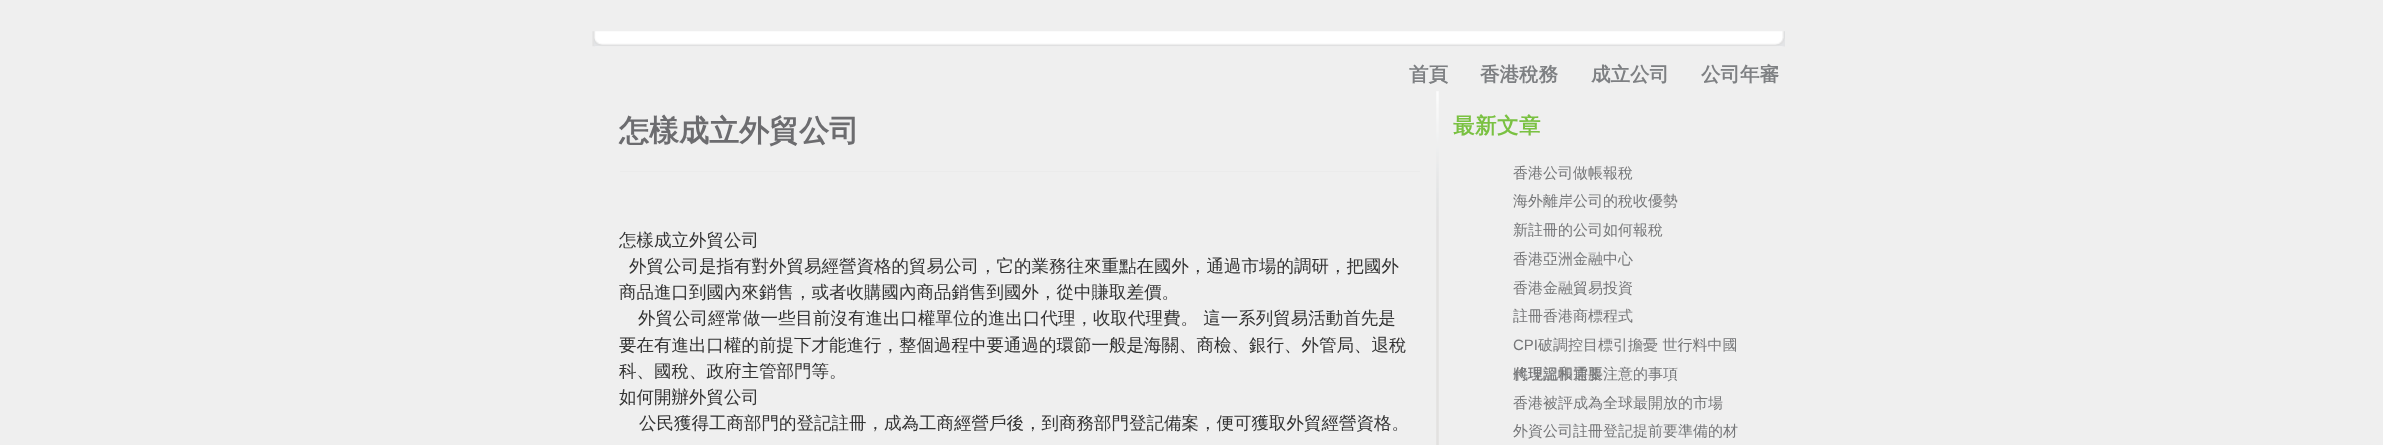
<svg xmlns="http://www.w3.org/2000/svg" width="2383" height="445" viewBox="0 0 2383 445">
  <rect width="100%" height="100%" fill="#efefef"/>
  <image x="592" y="31" width="1193" height="16" href="img/1.png"/>
  <image x="594" y="38" width="1191" height="9" href="img/2.png"/>
  <image x="1436" y="91" width="3" height="354" href="img/3.png"/>
  <path d="M620 171h800v1H620z" fill="#ebebeb"/>
  <g font-family="WenQuanYi Zen Hei" font-size="19.5" font-weight="bold" fill="#7e8083">
    <text x="1409" y="81">首頁</text>
    <text x="1480" y="81">香港稅務</text>
    <text x="1591" y="81">成立公司</text>
    <text x="1701" y="81">公司年審</text>
  </g>
  <text x="619" y="141" font-family="WenQuanYi Zen Hei" font-size="30" font-weight="bold" fill="#6c6c6f">怎樣成立外貿公司</text>
  <g font-family="WenQuanYi Zen Hei" font-size="17.5" font-weight="500" fill="#333">
    <text x="619" y="246">怎樣成立外貿公司</text>
    <text x="629" y="272">外貿公司是指有對外貿易經營資格的貿易公司，它的業務往來重點在國外，通過市場的調研，把國外</text>
    <text x="619" y="298">商品進口到國內來銷售，或者收購國內商品銷售到國外，從中賺取差價。</text>
    <text x="638" y="324">外貿公司經常做一些目前沒有進出口權單位的進出口代理，收取代理費。 這一系列貿易活動首先是</text>
    <text x="619" y="351">要在有進出口權的前提下才能進行，整個過程中要通過的環節一般是海關、商檢、銀行、外管局、退稅</text>
    <text x="619" y="377">科、國稅、政府主管部門等。</text>
    <text x="619" y="403">如何開辦外貿公司</text>
    <text x="639" y="429">公民獲得工商部門的登記註冊，成為工商經營戶後，到商務部門登記備案，便可獲取外貿經營資格。</text>
  </g>
  <text x="1453" y="133" font-family="WenQuanYi Zen Hei" font-size="21.5" font-weight="bold" letter-spacing="0.5" fill="#7ac142">最新文章</text>
  <g font-family="WenQuanYi Zen Hei" font-size="15" font-weight="500" fill="#767779">
    <text x="1513" y="178">香港公司做帳報稅</text>
    <text x="1513" y="206">海外離岸公司的稅收優勢</text>
    <text x="1513" y="235">新註冊的公司如何報稅</text>
    <text x="1513" y="264">香港亞洲金融中心</text>
    <text x="1513" y="293">香港金融貿易投資</text>
    <text x="1513" y="321">註冊香港商標程式</text>
  </g>
  <text x="1513" y="350" font-family="Liberation Sans" font-size="15" fill="#767779">CPI</text>
  <g font-family="WenQuanYi Zen Hei" font-size="15" font-weight="500" fill="#767779">
    <text x="1538" y="350">破調控目標引擔憂 世行料中國</text>
    <text x="1513" y="379">將現溫和通脹</text>
    <text x="1513" y="379">代理記帳需要注意的事項</text>
    <text x="1513" y="408">香港被評成為全球最開放的市場</text>
    <text x="1513" y="436">外資公司註冊登記提前要準備的材</text>
  </g>
</svg>
